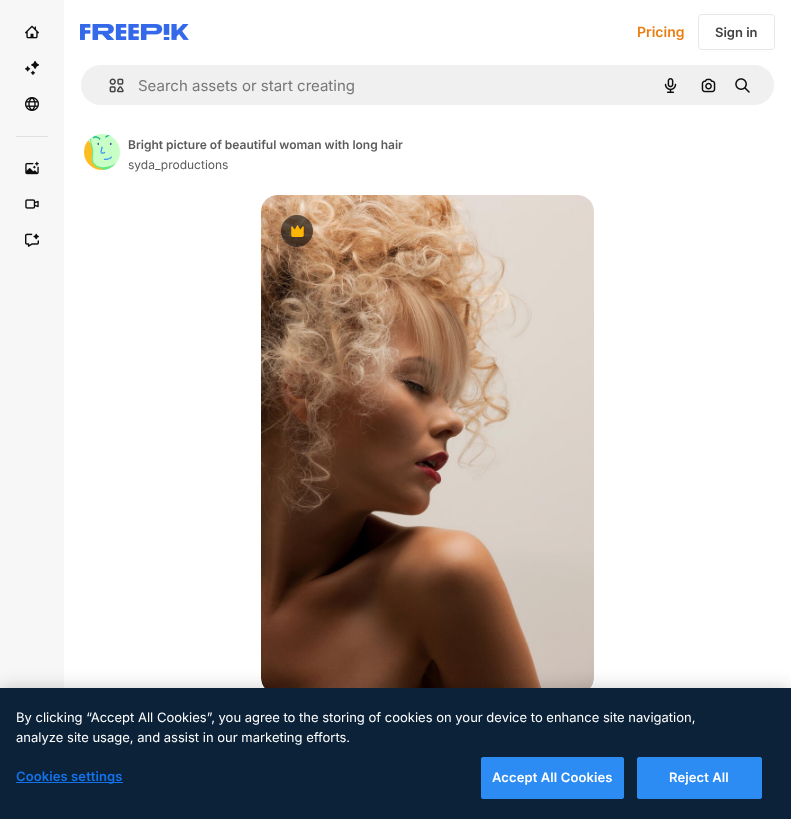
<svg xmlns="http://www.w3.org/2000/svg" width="791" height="819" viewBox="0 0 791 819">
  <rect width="100%" height="100%" fill="#fff"/>
  <path d="M0 0h64v688H0z" fill="#f7f7f7"/>
  <image x="25" y="25" width="14" height="14" href="img/1.png"/>
  <image x="25" y="61" width="14" height="14" href="img/2.png"/>
  <image x="25" y="97" width="14" height="14" href="img/3.png"/>
  <path d="M16 136h32v1H16z" fill="#e0e0e0"/>
  <image x="25" y="161" width="14" height="14" href="img/4.png"/>
  <image x="25" y="199" width="14" height="10" href="img/5.png"/>
  <image x="25" y="233" width="14" height="14" href="img/6.png"/>
  <image x="80" y="24" width="109" height="16" href="img/7.png"/>
  <rect x="698.5" y="14.5" width="76" height="35" rx="3.5" fill="none" stroke="#e7e7e7"/>
  <rect x="80.5" y="64.5" width="694" height="41" rx="20.5" fill="#f0f0f0" stroke="#fff"/>
  <image x="109" y="78" width="15" height="15" href="img/8.png"/>
  <image x="664" y="78" width="13" height="15" href="img/9.png"/>
  <image x="701" y="78" width="15" height="15" href="img/10.png"/>
  <image x="735" y="78" width="15" height="15" href="img/11.png"/>
  <image x="84" y="134" width="36" height="36" href="img/12.png"/>
  <image x="261" y="195" width="333" height="493" href="img/13.png"/>
  <circle cx="297" cy="231" r="16" fill="#0d0d0d99"/>
  <image x="291" y="225" width="13" height="12" href="img/14.png"/>
  <path d="M0 688h791v131H0z" fill="#00000033" filter="blur(9px)"/>
  <path d="M0 688h791v131H0z" fill="#0b2239"/>
  <path d="M16 782h107v1H16z" fill="#1273eb"/>
  <rect x="481.5" y="757.5" width="142" height="41" rx="1.5" fill="#2c8cf4" stroke="#2c8cf4"/>
  <rect x="637.5" y="757.5" width="124" height="41" rx="1.5" fill="#2c8cf4" stroke="#2c8cf4"/>
  <text x="637" y="37" font-family="Inter" font-size="14" font-weight="600" fill="#ea7e11">Pricing</text>
  <text x="715" y="37" font-family="Inter" font-size="13" font-weight="600" fill="#424242">Sign in</text>
  <text x="138" y="91" font-family="Inter" font-size="15" fill="#777">Search assets or start creating</text>
  <text x="128" y="149" font-family="Inter" font-size="12" font-weight="600" fill="#5c5c5c">Bright picture of beautiful woman with long hair</text>
  <text x="128" y="169" font-family="Inter" font-size="12" fill="#5c5c5c">syda_productions</text>
  <g font-family="Inter" font-size="13" fill="#fff">
    <text x="16" y="722">By clicking “Accept All Cookies”, you agree to the storing of cookies on your device to enhance site navigation,</text>
    <text x="16" y="742">analyze site usage, and assist in our marketing efforts.</text>
  </g>
  <text x="16" y="781" font-family="Inter" font-size="13" font-weight="600" letter-spacing="0.1" fill="#1273eb">Cookies settings</text>
  <g font-family="Inter" font-size="13" font-weight="600" letter-spacing="0.1" fill="#fff">
    <text x="492" y="782">Accept All Cookies</text>
    <text x="669" y="782">Reject All</text>
  </g>
</svg>
